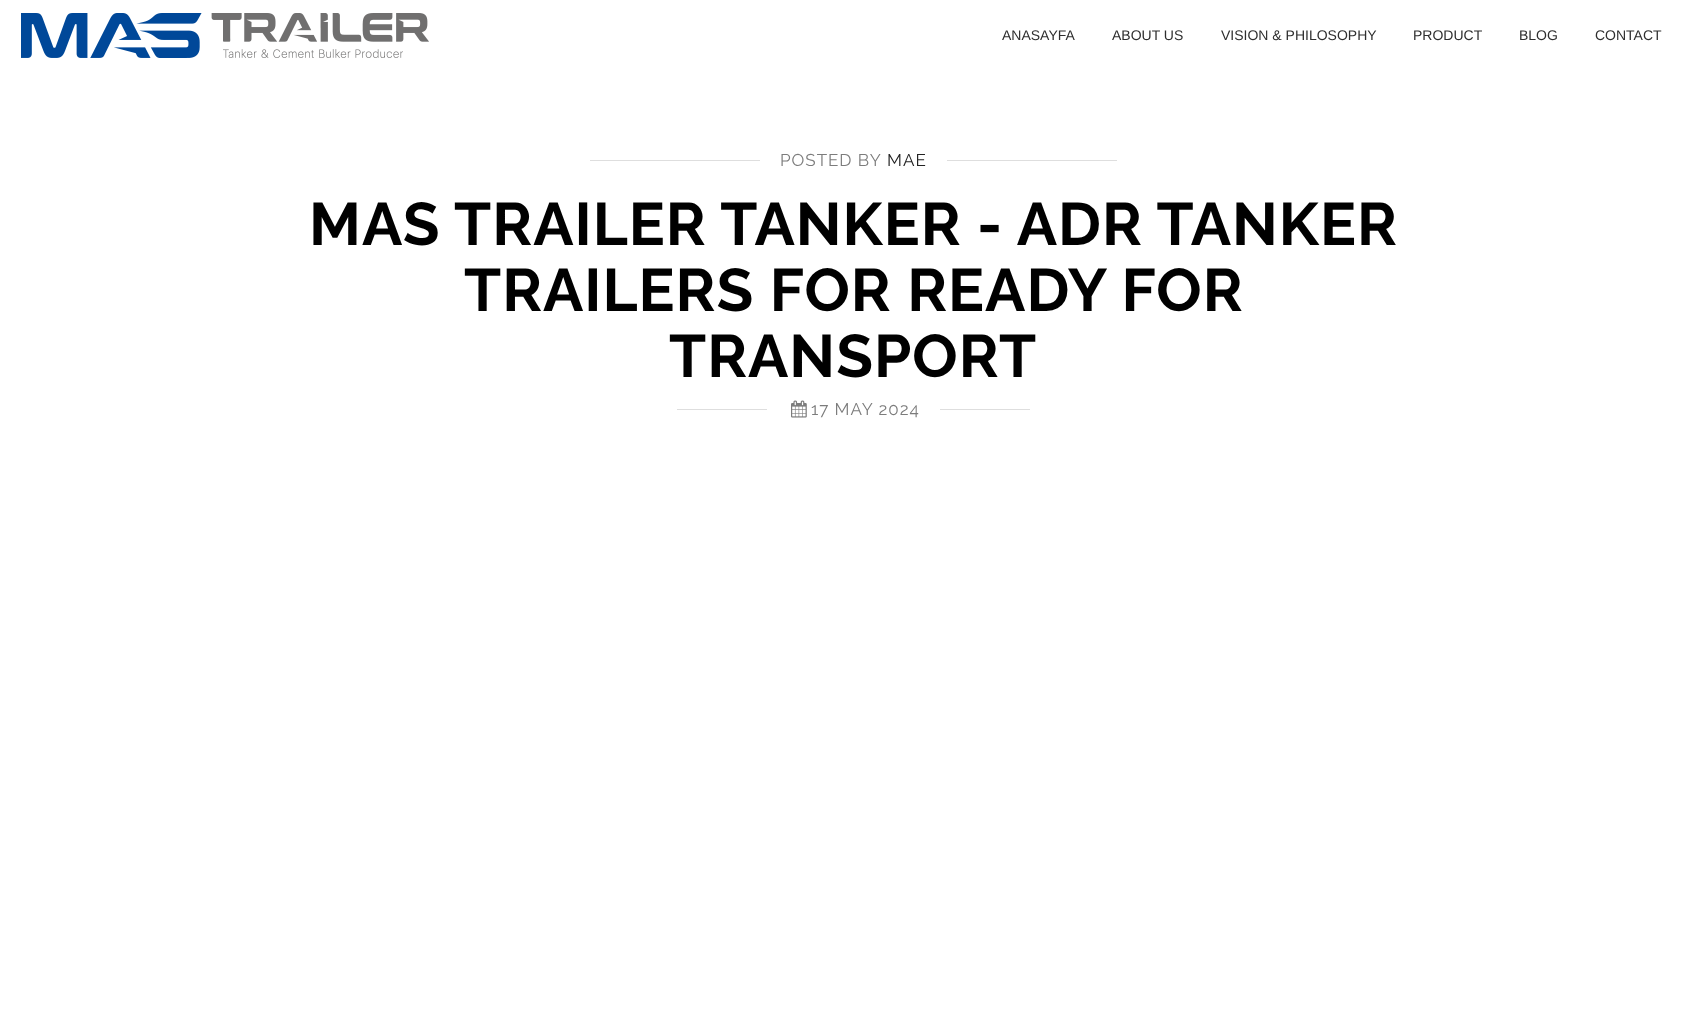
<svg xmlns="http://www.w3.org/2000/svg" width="1707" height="1019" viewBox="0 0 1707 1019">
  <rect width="100%" height="100%" fill="#fff"/>
  <image x="21" y="13" width="408" height="45" href="img/1.png"/>
  <path d="M590 160h170v1H590z" fill="#dedede"/>
  <path d="M947 160h170v1H947z" fill="#dedede"/>
  <path d="M677 409h90v1H677z" fill="#dedede"/>
  <image x="791" y="400" width="16" height="18" href="img/2.png"/>
  <path d="M940 409h90v1H940z" fill="#dedede"/>
  <g font-family="Liberation Sans" font-size="14" fill="#2e2e2e">
    <text x="1002" y="40">ANASAYFA</text>
    <text x="1112" y="40">ABOUT US</text>
    <text x="1221" y="40">VISION &amp; PHILOSOPHY</text>
    <text x="1413" y="40">PRODUCT</text>
    <text x="1519" y="40">BLOG</text>
    <text x="1595" y="40">CONTACT</text>
  </g>
  <text x="780" y="166" font-family="Raleway" font-size="17" letter-spacing="1" fill="#7c7c7c">POSTED BY</text>
  <text x="887" y="166" font-family="Raleway" font-size="17" letter-spacing="1" fill="#222">MAE</text>
  <g font-family="Raleway" font-size="60" font-weight="bold" letter-spacing="1" fill="#000">
    <text x="309" y="245">MAS TRAILER TANKER - ADR TANKER</text>
    <text x="464" y="311">TRAILERS FOR READY FOR</text>
    <text x="669" y="377">TRANSPORT</text>
  </g>
  <text x="811" y="415" font-family="Raleway" font-size="17" letter-spacing="1" fill="#7c7c7c">17 MAY 2024</text>
</svg>
